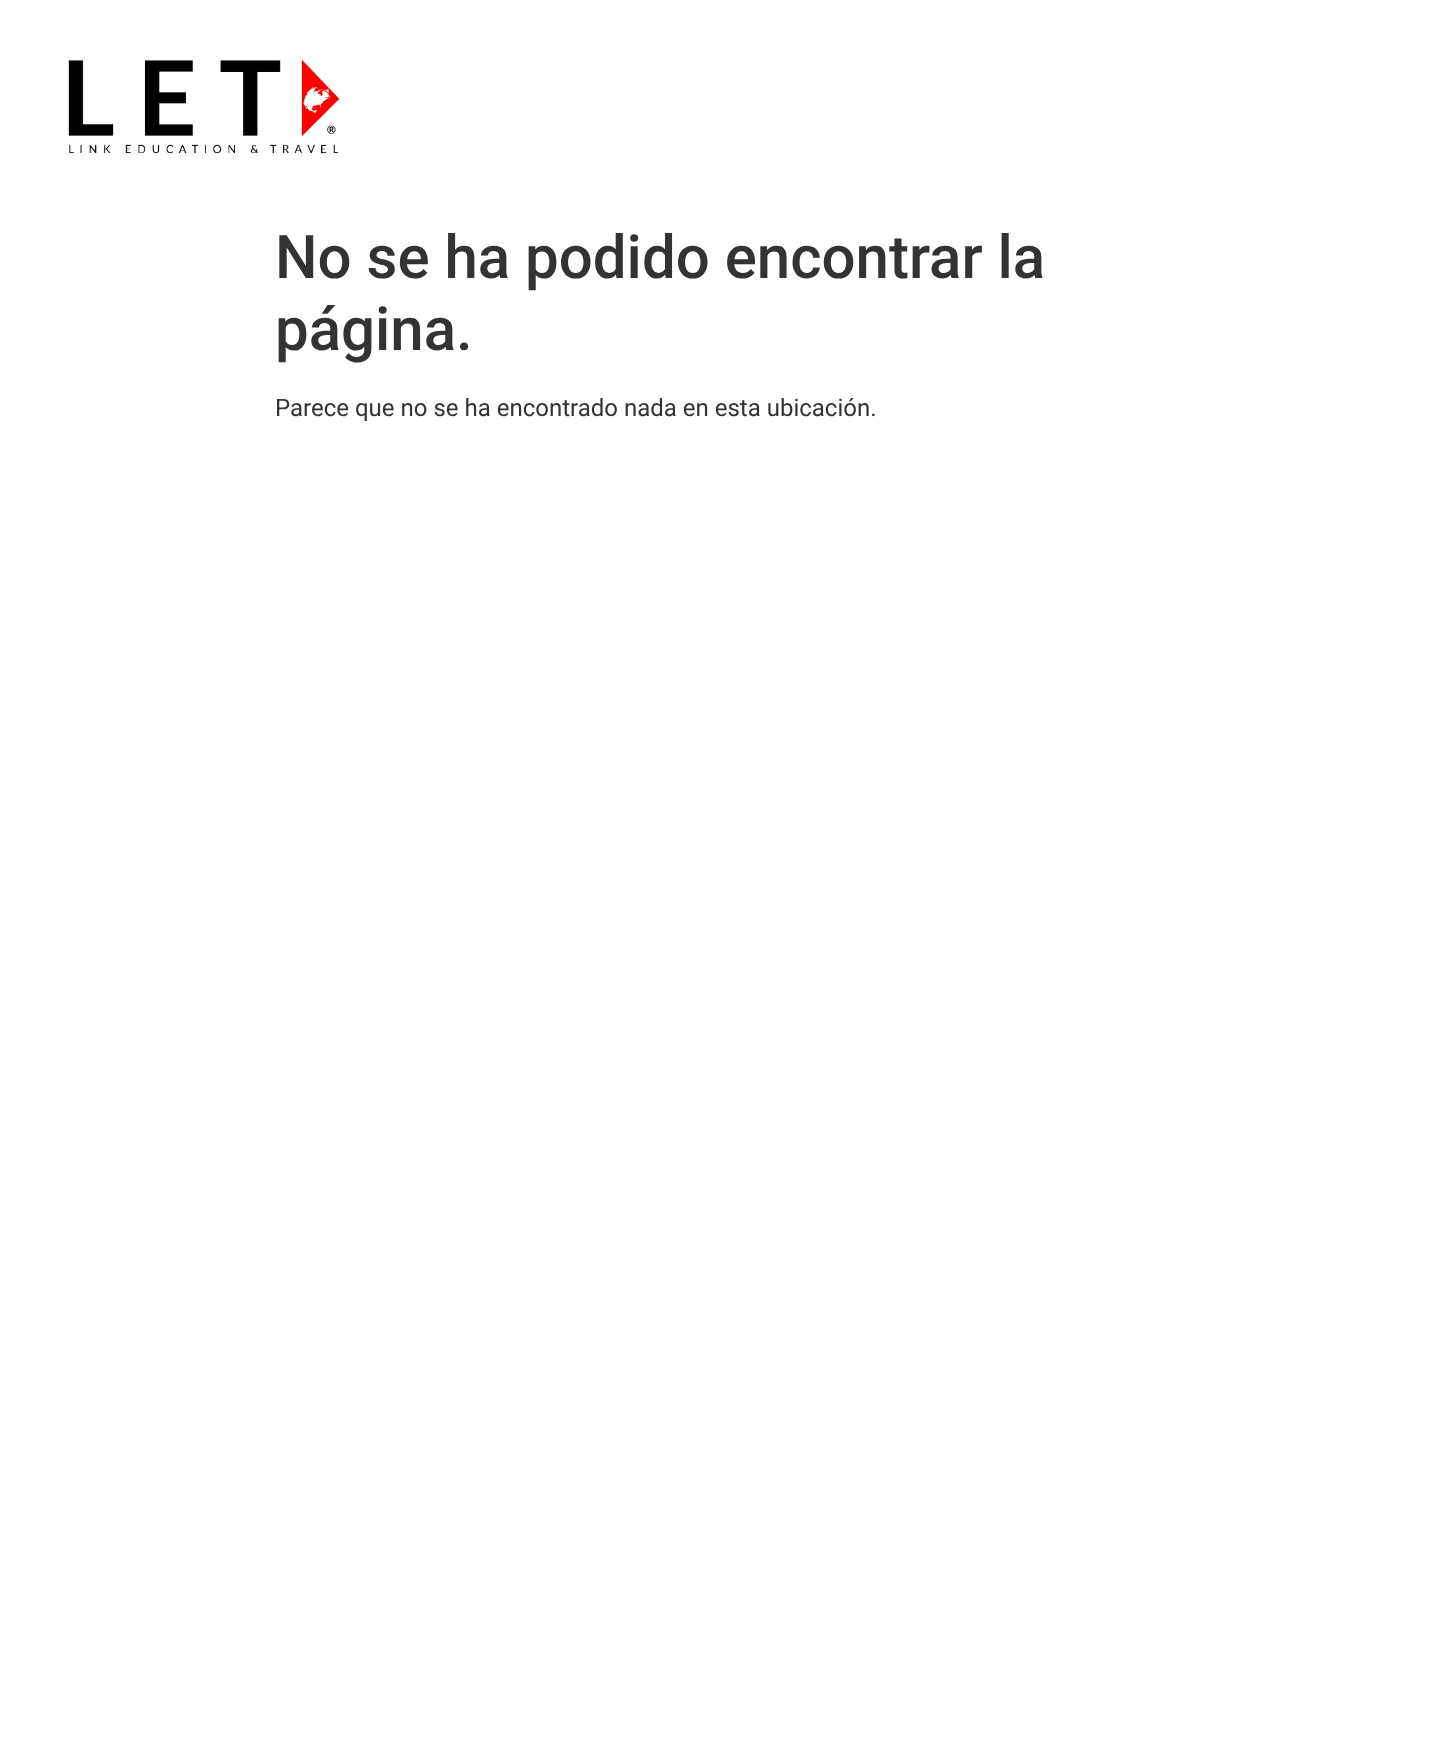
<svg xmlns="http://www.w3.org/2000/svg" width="1448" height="1741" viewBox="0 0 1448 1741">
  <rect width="100%" height="100%" fill="#fff"/>
  <image x="68" y="60" width="272" height="94" href="img/1.png"/>
  <g font-family="Roboto" font-size="60" font-weight="500" fill="#333">
    <text x="275" y="278">No se ha podido encontrar la</text>
    <text x="275" y="350">página.</text>
  </g>
  <text x="275" y="416" font-family="Roboto" font-size="24" fill="#333">Parece que no se ha encontrado nada en esta ubicación.</text>
</svg>
